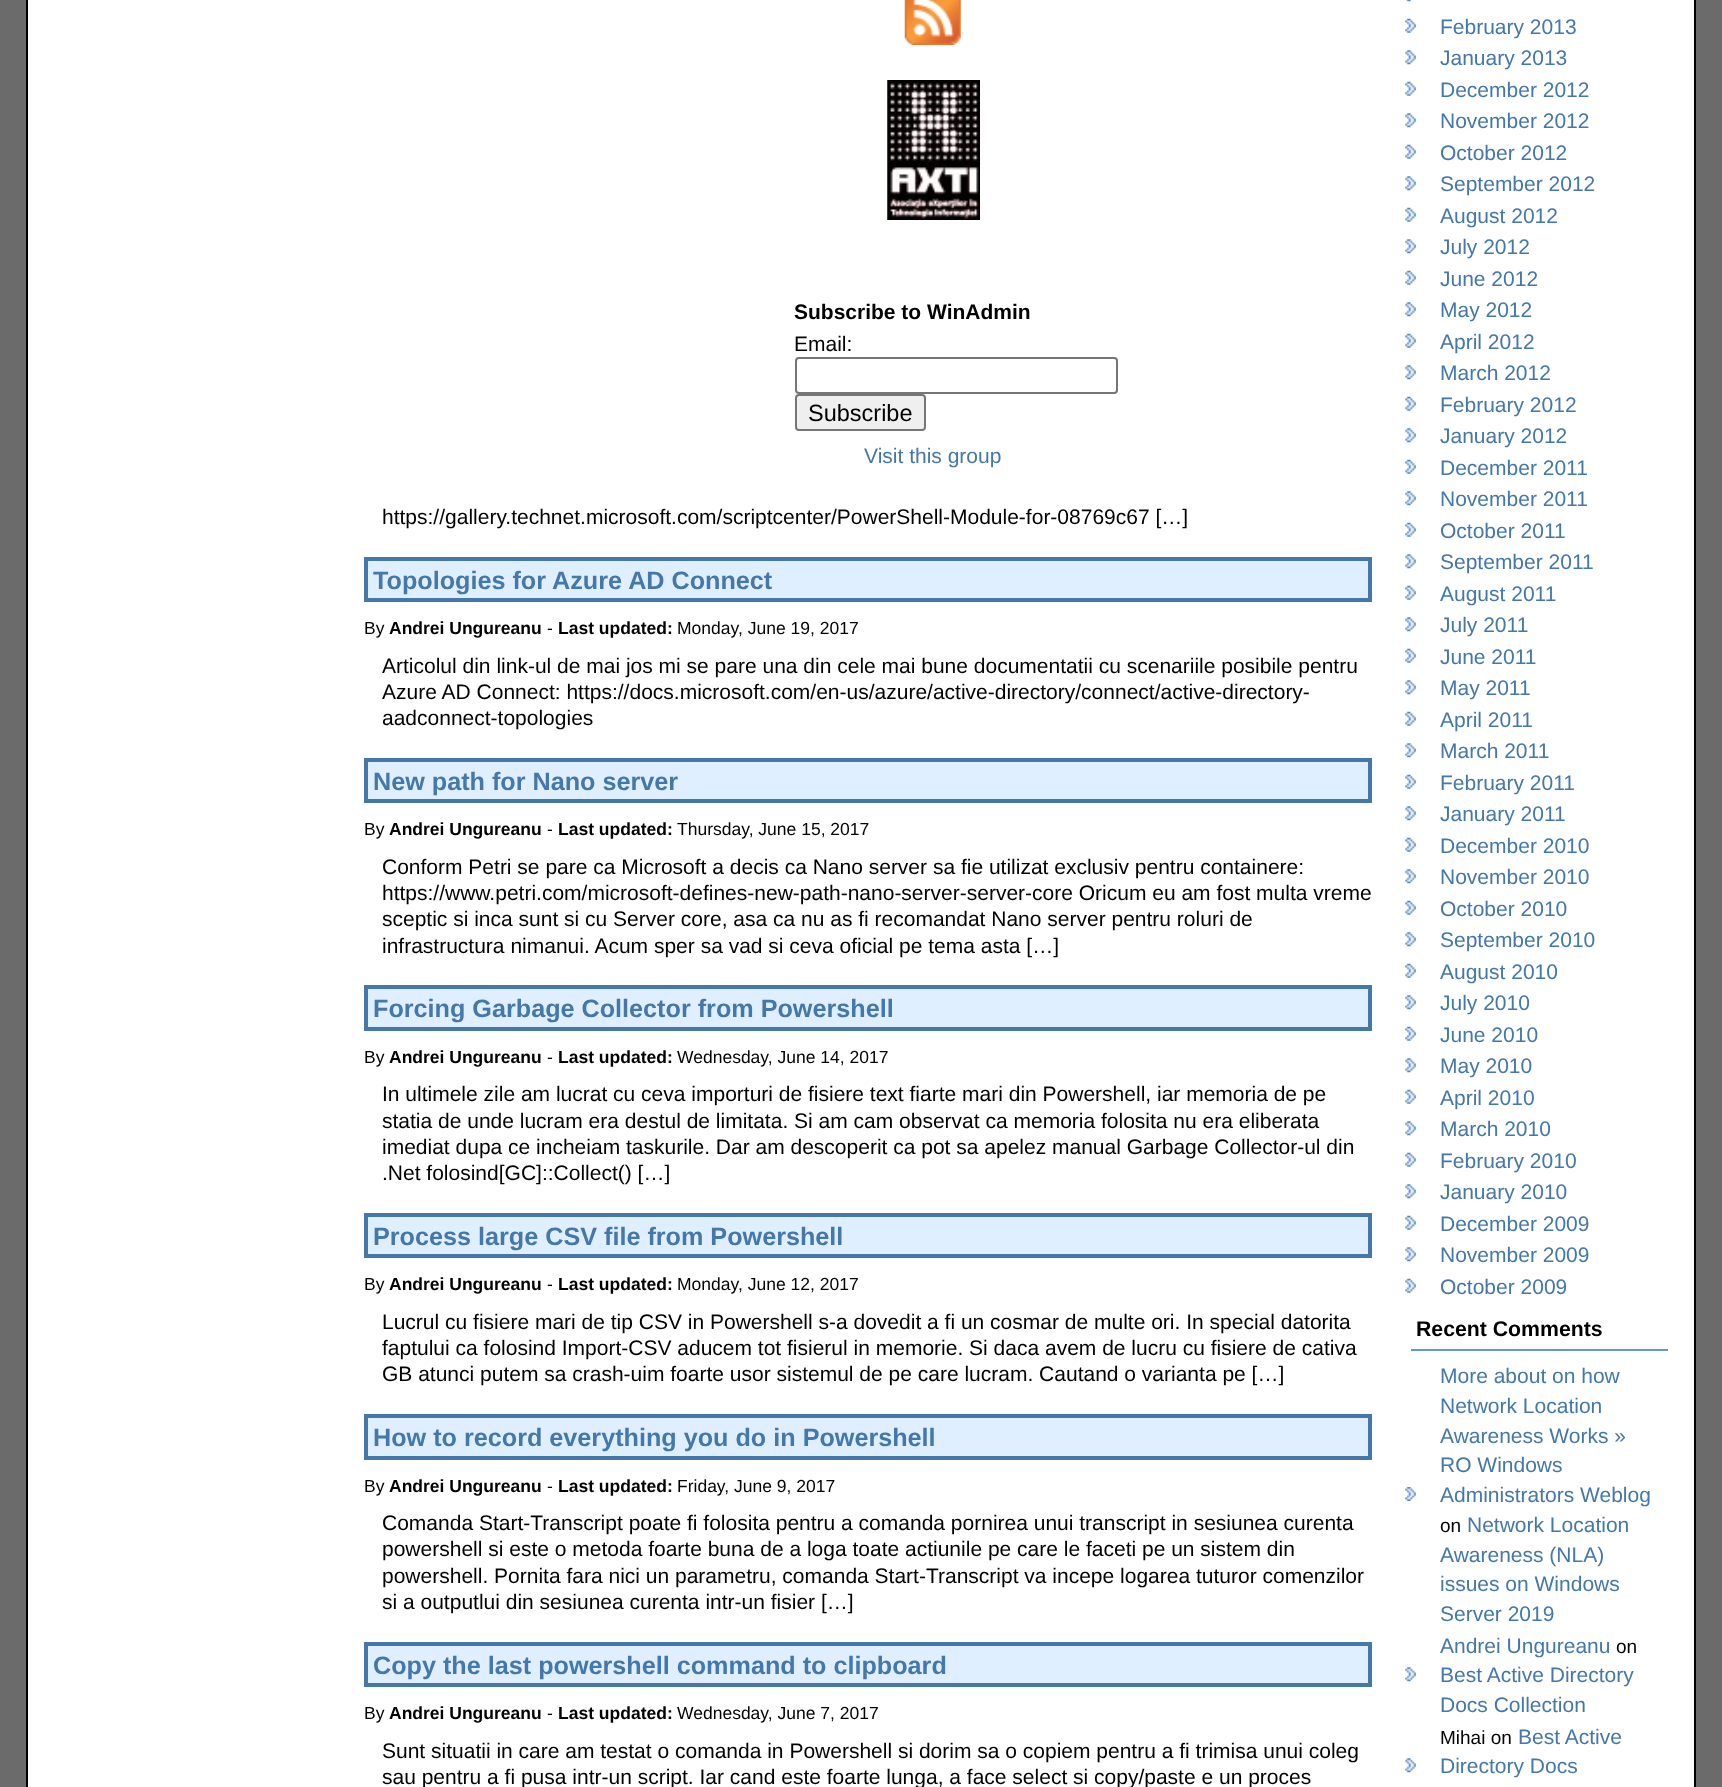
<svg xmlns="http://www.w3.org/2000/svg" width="1722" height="1787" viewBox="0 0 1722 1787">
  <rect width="100%" height="100%" fill="#6b6b6b"/>
  <path d="M27 -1h1668v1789H27z" fill="#fff" stroke="#000" stroke-width="2"/>
  <image x="904" y="0" width="57" height="45" href="img/1.png"/>
  <image x="887" y="80" width="93" height="140" href="img/2.png"/>
  <rect x="796" y="358" width="321" height="35" rx="3" fill="none" stroke="#767676" stroke-width="2"/>
  <rect x="796" y="395" width="129" height="35" rx="3" fill="#efefef" stroke="#767676" stroke-width="2"/>
  <image x="1406" y="0" width="5" height="2" href="img/3.png"/>
  <image x="1405" y="18" width="11" height="15" href="img/4.png"/>
  <image x="1405" y="50" width="11" height="15" href="img/5.png"/>
  <image x="1405" y="81" width="11" height="15" href="img/4.png"/>
  <image x="1405" y="113" width="11" height="15" href="img/5.png"/>
  <image x="1405" y="144" width="11" height="15" href="img/4.png"/>
  <image x="1405" y="176" width="11" height="15" href="img/5.png"/>
  <image x="1405" y="207" width="11" height="15" href="img/4.png"/>
  <image x="1405" y="239" width="11" height="15" href="img/5.png"/>
  <image x="1405" y="270" width="11" height="15" href="img/4.png"/>
  <image x="1405" y="302" width="11" height="15" href="img/5.png"/>
  <image x="1405" y="333" width="11" height="15" href="img/4.png"/>
  <image x="1405" y="365" width="11" height="15" href="img/5.png"/>
  <image x="1405" y="396" width="11" height="15" href="img/4.png"/>
  <image x="1405" y="428" width="11" height="15" href="img/5.png"/>
  <image x="1405" y="459" width="11" height="15" href="img/4.png"/>
  <image x="1405" y="491" width="11" height="15" href="img/5.png"/>
  <image x="1405" y="522" width="11" height="15" href="img/4.png"/>
  <image x="1405" y="554" width="11" height="15" href="img/5.png"/>
  <image x="1405" y="585" width="11" height="15" href="img/4.png"/>
  <image x="1405" y="617" width="11" height="15" href="img/5.png"/>
  <image x="1405" y="648" width="11" height="15" href="img/4.png"/>
  <image x="1405" y="680" width="11" height="15" href="img/5.png"/>
  <image x="1405" y="711" width="11" height="15" href="img/4.png"/>
  <image x="1405" y="743" width="11" height="15" href="img/5.png"/>
  <image x="1405" y="774" width="11" height="15" href="img/4.png"/>
  <image x="1405" y="806" width="11" height="15" href="img/5.png"/>
  <image x="1405" y="837" width="11" height="15" href="img/4.png"/>
  <image x="1405" y="869" width="11" height="15" href="img/6.png"/>
  <image x="1405" y="900" width="11" height="15" href="img/4.png"/>
  <image x="1405" y="932" width="11" height="15" href="img/5.png"/>
  <image x="1405" y="963" width="11" height="15" href="img/4.png"/>
  <image x="1405" y="995" width="11" height="15" href="img/5.png"/>
  <image x="1405" y="1026" width="11" height="15" href="img/4.png"/>
  <image x="1405" y="1058" width="11" height="15" href="img/5.png"/>
  <image x="1405" y="1089" width="11" height="15" href="img/4.png"/>
  <image x="1405" y="1121" width="11" height="15" href="img/5.png"/>
  <image x="1405" y="1152" width="11" height="15" href="img/4.png"/>
  <image x="1405" y="1184" width="11" height="15" href="img/5.png"/>
  <image x="1405" y="1215" width="11" height="15" href="img/4.png"/>
  <image x="1405" y="1247" width="11" height="15" href="img/5.png"/>
  <image x="1405" y="1278" width="11" height="15" href="img/4.png"/>
  <path d="M1411 1349h257v2H1411z" fill="#69c"/>
  <image x="1405" y="1487" width="11" height="14" href="img/7.png"/>
  <image x="1405" y="1667" width="11" height="15" href="img/5.png"/>
  <image x="1405" y="1758" width="11" height="15" href="img/5.png"/>
  <path d="M366 559h1004v41H366z" fill="#dfefff" stroke="#47a" stroke-width="4"/>
  <path d="M366 760h1004v41H366z" fill="#dfefff" stroke="#47a" stroke-width="4"/>
  <path d="M366 987h1004v42H366z" fill="#dfefff" stroke="#47a" stroke-width="4"/>
  <path d="M366 1215h1004v41H366z" fill="#dfefff" stroke="#47a" stroke-width="4"/>
  <path d="M366 1416h1004v42H366z" fill="#dfefff" stroke="#47a" stroke-width="4"/>
  <path d="M366 1644h1004v41H366z" fill="#dfefff" stroke="#47a" stroke-width="4"/>
  <text x="794" y="319" font-family="Liberation Sans" font-size="21" font-weight="bold" fill="#000">Subscribe to WinAdmin</text>
  <text x="794" y="351" font-family="Liberation Sans" font-size="21" fill="#000">Email:</text>
  <text x="808" y="421" font-family="Liberation Sans" font-size="23.5" fill="#000">Subscribe</text>
  <g font-family="Liberation Sans" font-size="21" fill="#47a">
    <text x="864" y="463">Visit this group</text>
    <text x="1440" y="34">February 2013</text>
    <text x="1440" y="65">January 2013</text>
    <text x="1440" y="97">December 2012</text>
    <text x="1440" y="128">November 2012</text>
    <text x="1440" y="160">October 2012</text>
    <text x="1440" y="191">September 2012</text>
    <text x="1440" y="223">August 2012</text>
    <text x="1440" y="254">July 2012</text>
    <text x="1440" y="286">June 2012</text>
    <text x="1440" y="317">May 2012</text>
    <text x="1440" y="349">April 2012</text>
    <text x="1440" y="380">March 2012</text>
    <text x="1440" y="412">February 2012</text>
    <text x="1440" y="443">January 2012</text>
    <text x="1440" y="475">December 2011</text>
    <text x="1440" y="506">November 2011</text>
    <text x="1440" y="538">October 2011</text>
    <text x="1440" y="569">September 2011</text>
    <text x="1440" y="601">August 2011</text>
    <text x="1440" y="632">July 2011</text>
    <text x="1440" y="664">June 2011</text>
    <text x="1440" y="695">May 2011</text>
    <text x="1440" y="727">April 2011</text>
    <text x="1440" y="758">March 2011</text>
    <text x="1440" y="790">February 2011</text>
    <text x="1440" y="821">January 2011</text>
    <text x="1440" y="853">December 2010</text>
    <text x="1440" y="884">November 2010</text>
    <text x="1440" y="916">October 2010</text>
    <text x="1440" y="947">September 2010</text>
    <text x="1440" y="979">August 2010</text>
    <text x="1440" y="1010">July 2010</text>
    <text x="1440" y="1042">June 2010</text>
    <text x="1440" y="1073">May 2010</text>
    <text x="1440" y="1105">April 2010</text>
    <text x="1440" y="1136">March 2010</text>
    <text x="1440" y="1168">February 2010</text>
    <text x="1440" y="1199">January 2010</text>
    <text x="1440" y="1231">December 2009</text>
    <text x="1440" y="1262">November 2009</text>
    <text x="1440" y="1294">October 2009</text>
  </g>
  <text x="1416" y="1336" font-family="Liberation Sans" font-size="21.25" font-weight="bold" fill="#000">Recent Comments</text>
  <g font-family="Liberation Sans" font-size="21" fill="#47a">
    <text x="1440" y="1383">More about on how</text>
    <text x="1440" y="1413">Network Location</text>
    <text x="1440" y="1443">Awareness Works »</text>
    <text x="1440" y="1472">RO Windows</text>
    <text x="1440" y="1502">Administrators Weblog</text>
  </g>
  <text x="1440" y="1532" font-family="Liberation Sans" font-size="19" fill="#000">on</text>
  <g font-family="Liberation Sans" font-size="21" fill="#47a">
    <text x="1467" y="1532">Network Location</text>
    <text x="1440" y="1562">Awareness (NLA)</text>
    <text x="1440" y="1591">issues on Windows</text>
    <text x="1440" y="1621">Server 2019</text>
    <text x="1440" y="1653">Andrei Ungureanu</text>
  </g>
  <text x="1616" y="1653" font-family="Liberation Sans" font-size="19" fill="#000">on</text>
  <g font-family="Liberation Sans" font-size="21" fill="#47a">
    <text x="1440" y="1682">Best Active Directory</text>
    <text x="1440" y="1712">Docs Collection</text>
  </g>
  <text x="1440" y="1744" font-family="Liberation Sans" font-size="19" fill="#000">Mihai on</text>
  <g font-family="Liberation Sans" font-size="21" fill="#47a">
    <text x="1518" y="1744">Best Active</text>
    <text x="1440" y="1773">Directory Docs</text>
  </g>
  <text x="382" y="524" font-family="Liberation Sans" font-size="21" fill="#000">https://gallery.technet.microsoft.com/scriptcenter/PowerShell-Module-for-08769c67 […]</text>
  <text x="373" y="589" font-family="Liberation Sans" font-size="25.2" font-weight="bold" fill="#47a">Topologies for Azure AD Connect</text>
  <text x="364" y="634" font-family="Liberation Sans" font-size="17.5" fill="#000">By</text>
  <text x="389" y="634" font-family="Liberation Sans" font-size="17.5" font-weight="bold" fill="#000">Andrei Ungureanu</text>
  <text x="547" y="634" font-family="Liberation Sans" font-size="17.5" fill="#000">-</text>
  <text x="558" y="634" font-family="Liberation Sans" font-size="17.5" font-weight="bold" fill="#000">Last updated:</text>
  <text x="677" y="634" font-family="Liberation Sans" font-size="17.5" fill="#000">Monday, June 19, 2017</text>
  <g font-family="Liberation Sans" font-size="21" fill="#000">
    <text x="382" y="673">Articolul din link-ul de mai jos mi se pare una din cele mai bune documentatii cu scenariile posibile pentru</text>
    <text x="382" y="699">Azure AD Connect: https://docs.microsoft.com/en-us/azure/active-directory/connect/active-directory-</text>
    <text x="382" y="725">aadconnect-topologies</text>
  </g>
  <text x="373" y="790" font-family="Liberation Sans" font-size="25.2" font-weight="bold" fill="#47a">New path for Nano server</text>
  <text x="364" y="835" font-family="Liberation Sans" font-size="17.5" fill="#000">By</text>
  <text x="389" y="835" font-family="Liberation Sans" font-size="17.5" font-weight="bold" fill="#000">Andrei Ungureanu</text>
  <text x="547" y="835" font-family="Liberation Sans" font-size="17.5" fill="#000">-</text>
  <text x="558" y="835" font-family="Liberation Sans" font-size="17.5" font-weight="bold" fill="#000">Last updated:</text>
  <text x="677" y="835" font-family="Liberation Sans" font-size="17.5" fill="#000">Thursday, June 15, 2017</text>
  <g font-family="Liberation Sans" font-size="21" fill="#000">
    <text x="382" y="874">Conform Petri se pare ca Microsoft a decis ca Nano server sa fie utilizat exclusiv pentru containere:</text>
    <text x="382" y="900">https://www.petri.com/microsoft-defines-new-path-nano-server-server-core Oricum eu am fost multa vreme</text>
    <text x="382" y="926">sceptic si inca sunt si cu Server core, asa ca nu as fi recomandat Nano server pentru roluri de</text>
    <text x="382" y="953">infrastructura nimanui. Acum sper sa vad si ceva oficial pe tema asta […]</text>
  </g>
  <text x="373" y="1017" font-family="Liberation Sans" font-size="25.2" font-weight="bold" fill="#47a">Forcing Garbage Collector from Powershell</text>
  <text x="364" y="1063" font-family="Liberation Sans" font-size="17.5" fill="#000">By</text>
  <text x="389" y="1063" font-family="Liberation Sans" font-size="17.5" font-weight="bold" fill="#000">Andrei Ungureanu</text>
  <text x="547" y="1063" font-family="Liberation Sans" font-size="17.5" fill="#000">-</text>
  <text x="558" y="1063" font-family="Liberation Sans" font-size="17.5" font-weight="bold" fill="#000">Last updated:</text>
  <text x="677" y="1063" font-family="Liberation Sans" font-size="17.5" fill="#000">Wednesday, June 14, 2017</text>
  <g font-family="Liberation Sans" font-size="21" fill="#000">
    <text x="382" y="1101">In ultimele zile am lucrat cu ceva importuri de fisiere text fiarte mari din Powershell, iar memoria de pe</text>
    <text x="382" y="1128">statia de unde lucram era destul de limitata. Si am cam observat ca memoria folosita nu era eliberata</text>
    <text x="382" y="1154">imediat dupa ce incheiam taskurile. Dar am descoperit ca pot sa apelez manual Garbage Collector-ul din</text>
    <text x="382" y="1180">.Net folosind[GC]::Collect() […]</text>
  </g>
  <text x="373" y="1245" font-family="Liberation Sans" font-size="25.2" font-weight="bold" fill="#47a">Process large CSV file from Powershell</text>
  <text x="364" y="1290" font-family="Liberation Sans" font-size="17.5" fill="#000">By</text>
  <text x="389" y="1290" font-family="Liberation Sans" font-size="17.5" font-weight="bold" fill="#000">Andrei Ungureanu</text>
  <text x="547" y="1290" font-family="Liberation Sans" font-size="17.5" fill="#000">-</text>
  <text x="558" y="1290" font-family="Liberation Sans" font-size="17.5" font-weight="bold" fill="#000">Last updated:</text>
  <text x="677" y="1290" font-family="Liberation Sans" font-size="17.5" fill="#000">Monday, June 12, 2017</text>
  <g font-family="Liberation Sans" font-size="21" fill="#000">
    <text x="382" y="1329">Lucrul cu fisiere mari de tip CSV in Powershell s-a dovedit a fi un cosmar de multe ori. In special datorita</text>
    <text x="382" y="1355">faptului ca folosind Import-CSV aducem tot fisierul in memorie. Si daca avem de lucru cu fisiere de cativa</text>
    <text x="382" y="1381">GB atunci putem sa crash-uim foarte usor sistemul de pe care lucram. Cautand o varianta pe […]</text>
  </g>
  <text x="373" y="1446" font-family="Liberation Sans" font-size="25.2" font-weight="bold" fill="#47a">How to record everything you do in Powershell</text>
  <text x="364" y="1492" font-family="Liberation Sans" font-size="17.5" fill="#000">By</text>
  <text x="389" y="1492" font-family="Liberation Sans" font-size="17.5" font-weight="bold" fill="#000">Andrei Ungureanu</text>
  <text x="547" y="1492" font-family="Liberation Sans" font-size="17.5" fill="#000">-</text>
  <text x="558" y="1492" font-family="Liberation Sans" font-size="17.5" font-weight="bold" fill="#000">Last updated:</text>
  <text x="677" y="1492" font-family="Liberation Sans" font-size="17.5" fill="#000">Friday, June 9, 2017</text>
  <g font-family="Liberation Sans" font-size="21" fill="#000">
    <text x="382" y="1530">Comanda Start-Transcript poate fi folosita pentru a comanda pornirea unui transcript in sesiunea curenta</text>
    <text x="382" y="1556">powershell si este o metoda foarte buna de a loga toate actiunile pe care le faceti pe un sistem din</text>
    <text x="382" y="1583">powershell. Pornita fara nici un parametru, comanda Start-Transcript va incepe logarea tuturor comenzilor</text>
    <text x="382" y="1609">si a outputlui din sesiunea curenta intr-un fisier […]</text>
  </g>
  <text x="373" y="1674" font-family="Liberation Sans" font-size="25.2" font-weight="bold" fill="#47a">Copy the last powershell command to clipboard</text>
  <text x="364" y="1719" font-family="Liberation Sans" font-size="17.5" fill="#000">By</text>
  <text x="389" y="1719" font-family="Liberation Sans" font-size="17.5" font-weight="bold" fill="#000">Andrei Ungureanu</text>
  <text x="547" y="1719" font-family="Liberation Sans" font-size="17.5" fill="#000">-</text>
  <text x="558" y="1719" font-family="Liberation Sans" font-size="17.5" font-weight="bold" fill="#000">Last updated:</text>
  <text x="677" y="1719" font-family="Liberation Sans" font-size="17.5" fill="#000">Wednesday, June 7, 2017</text>
  <g font-family="Liberation Sans" font-size="21" fill="#000">
    <text x="382" y="1758">Sunt situatii in care am testat o comanda in Powershell si dorim sa o copiem pentru a fi trimisa unui coleg</text>
    <text x="382" y="1784">sau pentru a fi pusa intr-un script. Iar cand este foarte lunga, a face select si copy/paste e un proces</text>
  </g>
</svg>
